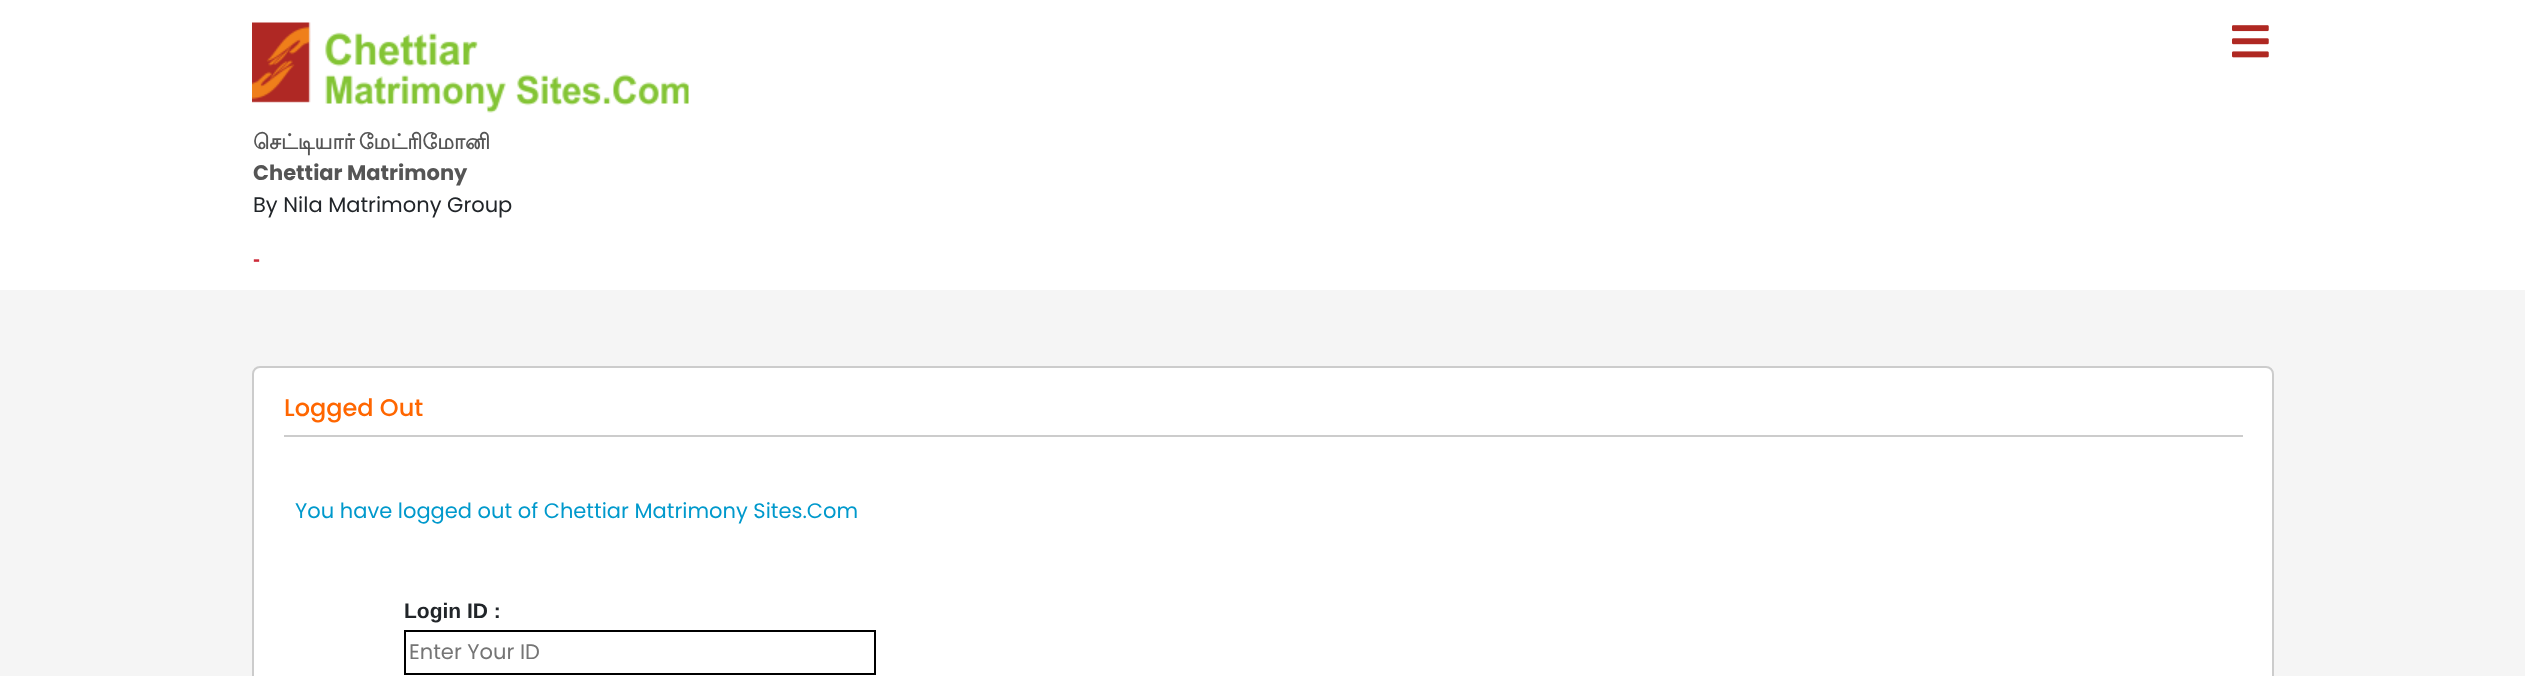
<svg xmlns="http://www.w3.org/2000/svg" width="2525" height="676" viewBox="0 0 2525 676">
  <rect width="100%" height="100%" fill="#fff"/>
  <image x="2232" y="25" width="37" height="33" href="img/1.png"/>
  <image x="252" y="22" width="437" height="91" href="img/2.png"/>
  <path d="M0 290h2525v386H0z" fill="#f5f5f5"/>
  <rect x="253" y="367" width="2020" height="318" rx="7" fill="#fff" stroke="#ccc" stroke-width="2"/>
  <path d="M284 435h1959v2H284z" fill="#ccc"/>
  <path d="M405 631h470v43H405z" fill="none" stroke="#000" stroke-width="2"/>
  <text x="253" y="149" word-spacing="-2" font-family="Lohit Tamil" font-size="21" font-weight="bold" fill="#555">செட்டியார் மேட்ரிமோனி</text>
  <text x="253" y="180" font-family="Poppins" font-size="21" font-weight="bold" fill="#555">Chettiar Matrimony</text>
  <text x="253" y="212" font-family="Poppins" font-size="21" fill="#212529">By Nila Matrimony Group</text>
  <text x="253" y="266" font-family="Liberation Sans" font-size="21" font-weight="bold" fill="#cd2b3a">-</text>
  <text x="284" y="416" font-family="Poppins" font-size="24" font-weight="500" fill="#f60">Logged Out</text>
  <text x="295" y="518" font-family="Poppins" font-size="21" fill="#09c">You have logged out of Chettiar Matrimony Sites.Com</text>
  <text x="404" y="618" font-family="Liberation Sans" font-size="21" font-weight="bold" fill="#212529">Login ID :</text>
  <text x="409" y="659" font-family="Poppins" font-size="21" fill="#757575">Enter Your ID</text>
</svg>
